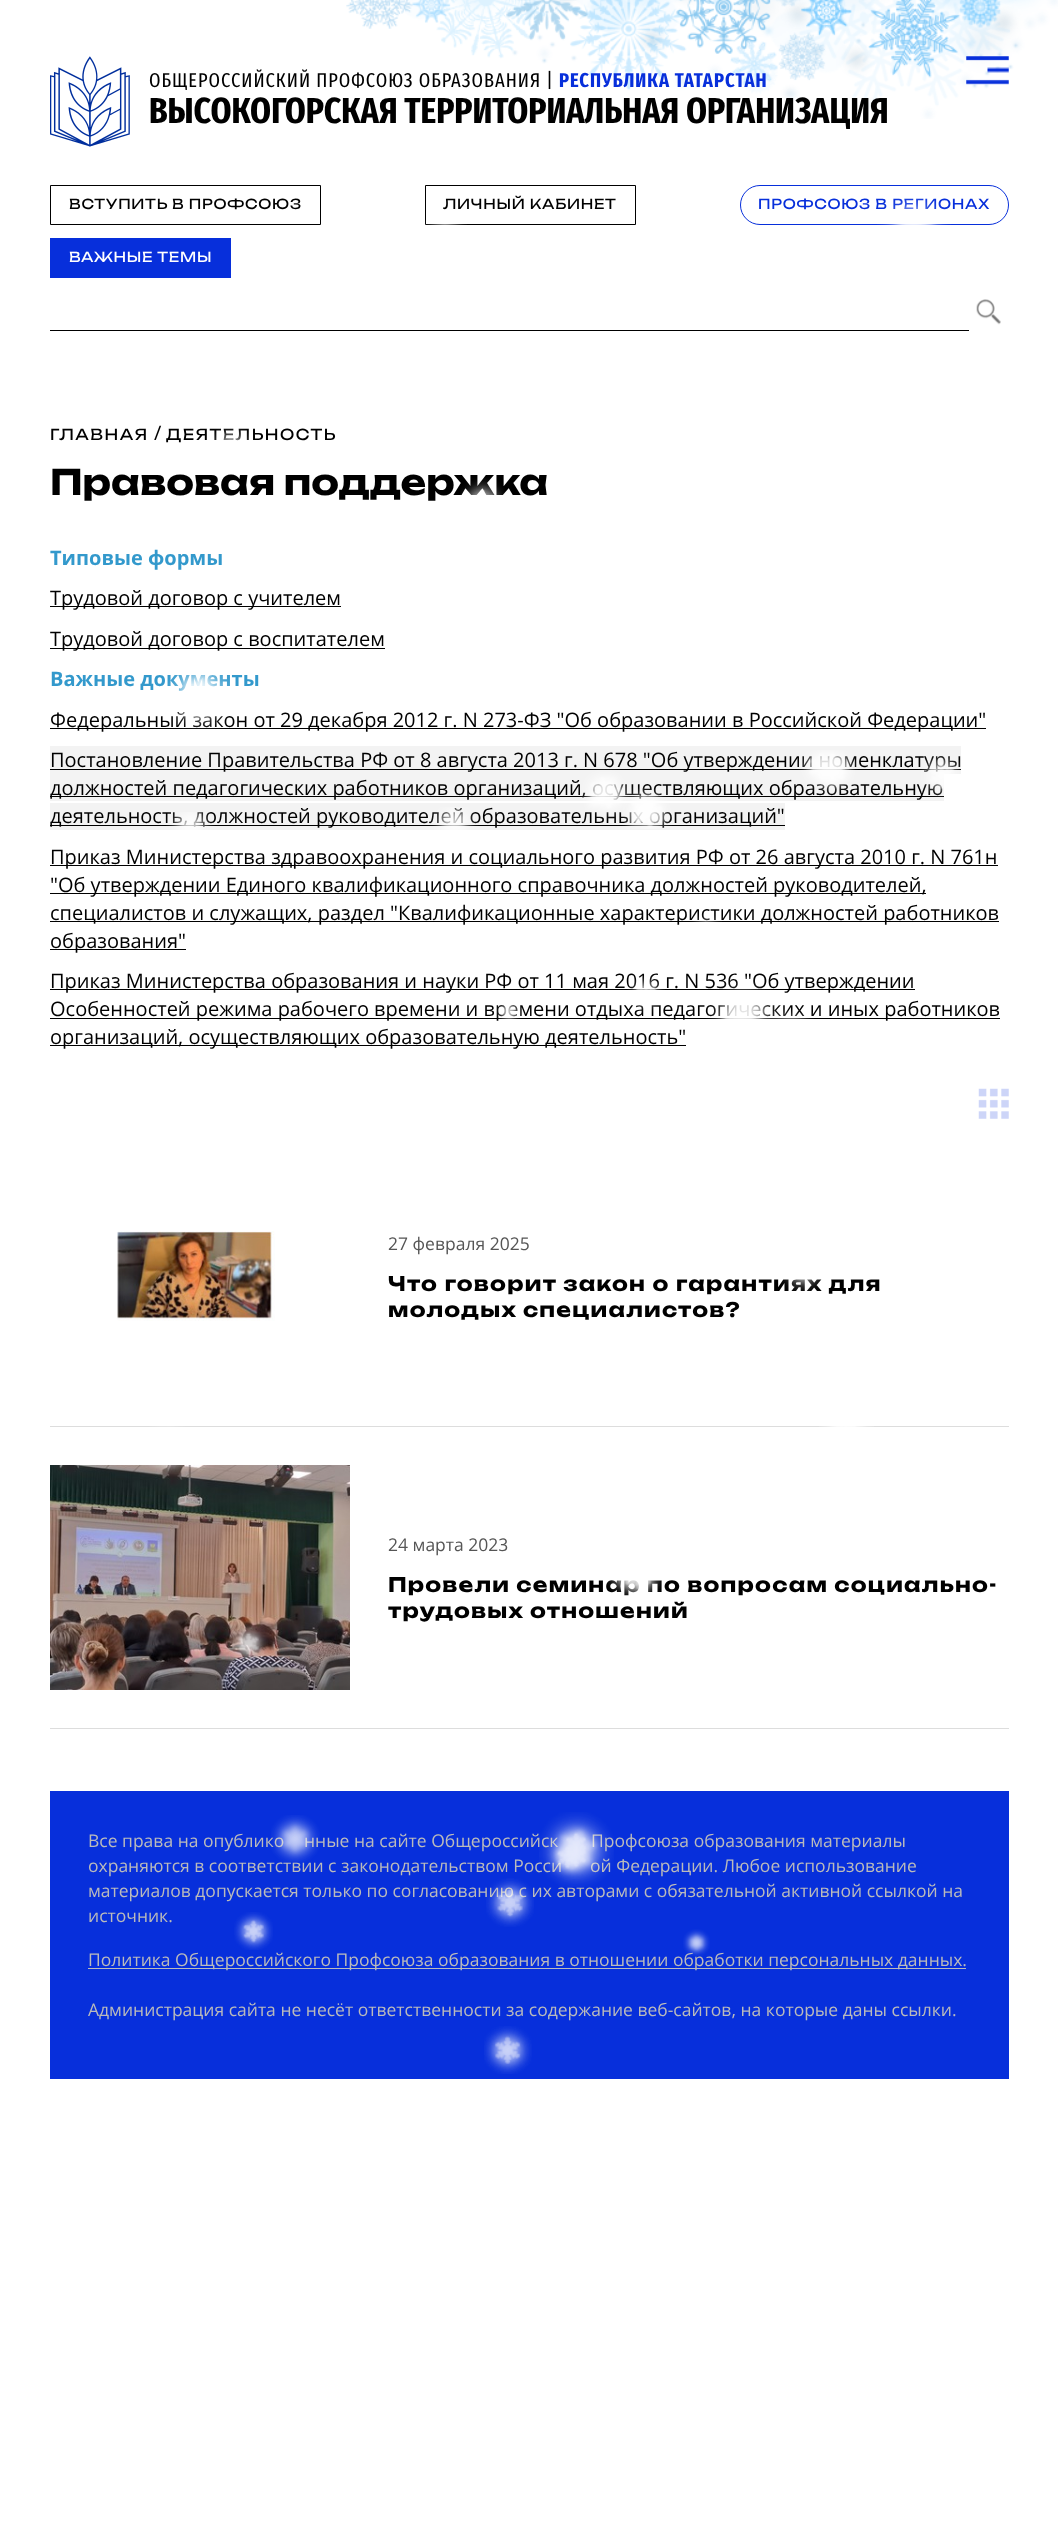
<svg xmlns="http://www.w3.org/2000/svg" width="1058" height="2532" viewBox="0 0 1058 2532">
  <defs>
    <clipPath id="clip1"><path d="M388 1573h621v51H388z"/></clipPath>
  </defs>
  <rect width="100%" height="100%" fill="#fff"/>
  <image x="346" y="0" width="712" height="119" href="img/1.png"/>
  <image x="50" y="56" width="80" height="91" href="img/2.png"/>
  <image x="966" y="56" width="43" height="29" href="img/3.png"/>
  <path d="M50.5 185.5h270v39H50.5z" fill="none" stroke="#000"/>
  <path d="M425.5 185.5h210v39H425.5z" fill="none" stroke="#000"/>
  <rect x="740.5" y="185.5" width="268" height="39" rx="19.5" fill="none" stroke="#072fdb"/>
  <path d="M50 238h181v40H50z" fill="#072fdb"/>
  <image x="976" y="299" width="25" height="26" href="img/4.png"/>
  <path d="M50 330h919v1H50z" fill="#000"/>
  <image x="425" y="220" width="42" height="5" href="img/5.png"/>
  <path d="M50 606h291v1H50z" fill="#000"/>
  <path d="M50 648h335v1H50z" fill="#000"/>
  <path d="M50 728h936v1H50z" fill="#000"/>
  <path d="M50 746h911v28H50z" fill="#f3f3f3"/>
  <path d="M50 769h911v1H50z" fill="#000"/>
  <path d="M50 774h894v27H50z" fill="#f3f3f3"/>
  <path d="M50 796h894v1H50z" fill="#000"/>
  <path d="M50 803h735v27H50z" fill="#f3f3f3"/>
  <path d="M50 825h735v1H50z" fill="#000"/>
  <path d="M50 865h948v1H50z" fill="#000"/>
  <path d="M50 893h876v1H50z" fill="#000"/>
  <path d="M50 921h949v1H50z" fill="#000"/>
  <path d="M50 949h136v1H50z" fill="#000"/>
  <path d="M50 989h865v1H50z" fill="#000"/>
  <path d="M50 1018h950v1H50z" fill="#000"/>
  <path d="M50 1045h636v1H50z" fill="#000"/>
  <image x="978" y="1088" width="31" height="31" href="img/7.png"/>
  <path d="M50 1426h959v1H50z" fill="#ddd"/>
  <image x="117" y="1231" width="158" height="90" href="img/8.png"/>
  <path d="M50 1728h959v1H50z" fill="#ddd"/>
  <image x="50" y="1465" width="300" height="225" href="img/9.png"/>
  <image x="149" y="1426" width="37" height="48" href="img/25.png"/>
  <image x="819" y="1426" width="55" height="1" href="img/26.png"/>
  <image x="229" y="1624" width="39" height="39" href="img/28.png"/>
  <path d="M50 1791h959v288H50z" fill="#072fdb"/>
  <path d="M88 1968h878v1H88z" fill="#bbb"/>
  <image x="234" y="1912" width="39" height="38" href="img/32.png"/>
  <image x="484" y="2026" width="48" height="48" href="img/34.png"/>
  <text x="149" y="87" font-family="Fira Sans Extra Condensed" font-size="20" letter-spacing="1" fill="#000">ОБЩЕРОССИЙСКИЙ ПРОФСОЮЗ ОБРАЗОВАНИЯ |</text>
  <text x="559" y="87" font-family="Fira Sans Extra Condensed" font-size="20" font-weight="bold" letter-spacing="1" fill="#072fdb">РЕСПУБЛИКА ТАТАРСТАН</text>
  <text x="149" y="123" font-family="Fira Sans Extra Condensed" font-size="36.25" font-weight="bold" fill="#000">ВЫСОКОГОРСКАЯ ТЕРРИТОРИАЛЬНАЯ ОРГАНИЗАЦИЯ</text>
  <g font-family="Unbounded" font-size="13.75" letter-spacing="0.75" fill="#000">
    <text x="69" y="209">ВСТУПИТЬ В ПРОФСОЮЗ</text>
    <text x="443" y="209">ЛИЧНЫЙ КАБИНЕТ</text>
  </g>
  <text x="758" y="209" font-family="Unbounded" font-size="13.75" letter-spacing="0.75" fill="#072fdb">ПРОФСОЮЗ В РЕГИОНАХ</text>
  <text x="69" y="262" font-family="Unbounded" font-size="13.75" letter-spacing="0.75" fill="#fff">ВАЖНЫЕ ТЕМЫ</text>
  <image x="877" y="198" width="74" height="27" href="img/6.png"/>
  <text x="50" y="440" font-family="Unbounded" font-size="15" letter-spacing="1.5" fill="#000">ГЛАВНАЯ</text>
  <text x="154" y="440" font-family="Open Sans" font-size="20" fill="#000">/</text>
  <text x="166" y="440" font-family="Unbounded" font-size="15" letter-spacing="1.5" fill="#000">ДЕЯТЕЛЬНОСТЬ</text>
  <text x="50" y="495" font-family="Unbounded" font-size="35" font-weight="bold" fill="#000">Правовая поддержка</text>
  <text x="50" y="565" font-family="Open Sans" font-size="20" font-weight="bold" fill="#39c">Типовые формы</text>
  <g font-family="Open Sans" font-size="20" fill="#000">
    <text x="50" y="605">Трудовой договор с учителем</text>
    <text x="50" y="646">Трудовой договор с воспитателем</text>
  </g>
  <text x="50" y="686" font-family="Open Sans" font-size="20" font-weight="bold" fill="#39c">Важные документы</text>
  <g font-family="Open Sans" font-size="20" fill="#000">
    <text x="50" y="727">Федеральный закон от 29 декабря 2012 г. N 273-ФЗ "Об образовании в Российской Федерации"</text>
    <text x="50" y="767">Постановление Правительства РФ от 8 августа 2013 г. N 678 "Об утверждении номенклатуры</text>
    <text x="50" y="795">должностей педагогических работников организаций, осуществляющих образовательную</text>
    <text x="50" y="823">деятельность, должностей руководителей образовательных организаций"</text>
    <text x="50" y="864">Приказ Министерства здравоохранения и социального развития РФ от 26 августа 2010 г. N 761н</text>
    <text x="50" y="892">"Об утверждении Единого квалификационного справочника должностей руководителей,</text>
    <text x="50" y="920">специалистов и служащих, раздел "Квалификационные характеристики должностей работников</text>
    <text x="50" y="948">образования"</text>
    <text x="50" y="988">Приказ Министерства образования и науки РФ от 11 мая 2016 г. N 536 "Об утверждении</text>
    <text x="50" y="1016">Особенностей режима рабочего времени и времени отдыха педагогических и иных работников</text>
    <text x="50" y="1044">организаций, осуществляющих образовательную деятельность"</text>
  </g>
  <text x="388" y="1250" font-family="Open Sans" font-size="17.5" fill="#555">27 февраля 2025</text>
  <g font-family="Unbounded" font-size="20" font-weight="bold" letter-spacing="1.25" fill="#000">
    <text x="388" y="1291" word-spacing="0.25">Что говорит закон о гарантиях для</text>
    <text x="388" y="1317">молодых специалистов?</text>
  </g>
  <text x="388" y="1551" font-family="Open Sans" font-size="17.5" fill="#555">24 марта 2023</text>
  <text x="388" y="1592" font-family="Unbounded" font-size="20" font-weight="bold" letter-spacing="1.25" fill="#000">Провели семинар по вопросам социально-</text>
  <g clip-path="url(#clip1)">
    <text x="388" y="1618" font-family="Unbounded" font-size="20" font-weight="bold" letter-spacing="1.25" fill="#000">трудовых отношений</text>
  </g>
  <image x="214" y="428" width="40" height="13" href="img/10.png"/>
  <image x="460" y="478" width="45" height="17" href="img/11.png"/>
  <image x="167" y="674" width="65" height="55" href="img/12.png"/>
  <image x="166" y="812" width="49" height="18" href="img/13.png"/>
  <image x="430" y="807" width="48" height="23" href="img/14.png"/>
  <image x="620" y="785" width="52" height="44" href="img/16.png"/>
  <image x="579" y="769" width="54" height="50" href="img/15.png"/>
  <image x="797" y="750" width="61" height="45" href="img/17.png"/>
  <image x="918" y="756" width="43" height="41" href="img/18.png"/>
  <image x="690" y="913" width="32" height="9" href="img/19.png"/>
  <image x="497" y="1005" width="25" height="14" href="img/20.png"/>
  <image x="627" y="974" width="38" height="39" href="img/21.png"/>
  <image x="706" y="977" width="75" height="42" href="img/22.png"/>
  <image x="766" y="1009" width="48" height="10" href="img/23.png"/>
  <image x="781" y="1279" width="40" height="12" href="img/24.png"/>
  <image x="606" y="1580" width="55" height="16" href="img/27.png"/>
  <g font-family="Open Sans" font-size="17.5" fill="#bbb">
    <text x="88" y="1847">Все права на опублико</text>
    <text x="304" y="1847">нные на сайте Общероссийск</text>
    <text x="591" y="1847">Профсоюза образования материалы</text>
    <text x="88" y="1872">охраняются в соответствии с законодательством Росси</text>
  </g>
  <image x="271" y="1815" width="49" height="49" href="img/29.png"/>
  <g font-family="Open Sans" font-size="17.5" fill="#bbb">
    <text x="590" y="1872">ой Федерации. Любое использование</text>
    <text x="88" y="1897">материалов допускается только по согласованию с их авторами с обязательной активной ссылкой на</text>
  </g>
  <image x="539" y="1812" width="75" height="75" href="img/30.png"/>
  <g font-family="Open Sans" font-size="17.5" fill="#bbb">
    <text x="88" y="1922">источник.</text>
    <text x="88" y="1966">Политика Общероссийского Профсоюза образования в отношении обработки персональных данных.</text>
    <text x="88" y="2016">Администрация сайта не несёт ответственности за содержание веб-сайтов, на которые даны ссылки.</text>
  </g>
  <image x="486" y="1878" width="48" height="49" href="img/31.png"/>
  <image x="683" y="1929" width="27" height="27" href="img/33.png"/>
</svg>
